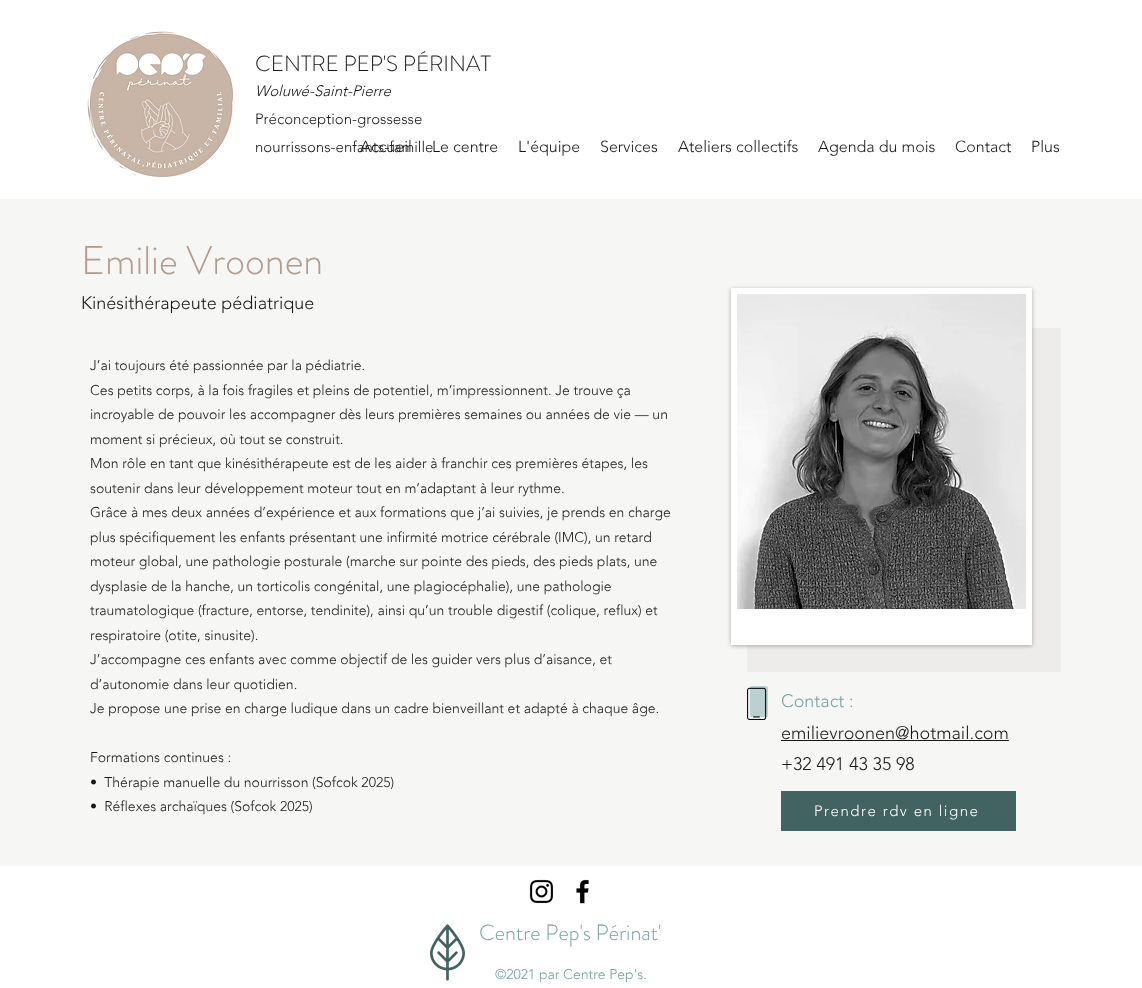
<svg xmlns="http://www.w3.org/2000/svg" width="1142" height="988" viewBox="0 0 1142 988">
  <style>*{font-kerning:none!important;font-variant-ligatures:none!important}</style>
  <rect width="100%" height="100%" fill="#fff"/>
  <image x="87" y="31" width="147" height="146" href="img/1.png"/>
  <path d="M0 199h1142v667H0z" fill="#f6f6f5"/>
  <path d="M747 328h314v344H747z" fill="#edeceb"/>
  <path d="M731 289h301v357H731z" fill="#0000004d" filter="blur(2px)"/>
  <path d="M731 288h301v357H731z" fill="#fff"/>
  <image x="737" y="294" width="289" height="315" href="img/2.png"/>
  <image x="747" y="686" width="21" height="34" href="img/3.png"/>
  <path d="M781 740h228v1H781z" fill="#181818"/>
  <path d="M781 791h235v40H781z" fill="#436363"/>
  <image x="529" y="879" width="25" height="25" href="img/4.png"/>
  <image x="576" y="879" width="13" height="25" href="img/5.png"/>
  <image x="430" y="924" width="35" height="57" href="img/6.png"/>
  <text x="255" y="71" font-family="'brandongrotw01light'" font-size="22" font-weight="300" fill="#181818">CENTRE PEP'S PÉRINAT</text>
  <text x="255" y="96" font-family="'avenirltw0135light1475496'" font-size="15" font-weight="300" font-style="italic" fill="#181818">Woluwé-Saint-Pierre</text>
  <g font-family="'avenirltw0135light1475496'" font-size="15" font-weight="300" fill="#181818">
    <text x="255" y="124">Préconception-grossesse</text>
    <text x="255" y="152">nourrissons-enfants-famille</text>
  </g>
  <g font-family="'avenirltw0135light1475496'" font-size="16" font-weight="300" fill="#181818">
    <text x="360" y="152">Accueil</text>
    <text x="432" y="152">Le centre</text>
    <text x="518" y="152">L'équipe</text>
    <text x="600" y="152">Services</text>
    <text x="678" y="152">Ateliers collectifs</text>
    <text x="818" y="152">Agenda du mois</text>
    <text x="955" y="152">Contact</text>
    <text x="1031" y="152">Plus</text>
  </g>
  <text x="81" y="274" font-family="'brandongrotw01light'" font-size="40" font-weight="300" fill="#b29b8b">Emilie Vroonen</text>
  <text x="81" y="309" font-family="'avenirltw0135light1475496'" font-size="18" font-weight="300" fill="#181818">Kinésithérapeute pédiatrique</text>
  <g font-family="'avenirltw0135light1475496'" font-size="14" font-weight="300" fill="#181818">
    <text x="90" y="370">J’ai toujours été passionnée par la pédiatrie.</text>
    <text x="90" y="395">Ces petits corps, à la fois fragiles et pleins de potentiel, m’impressionnent. Je trouve ça</text>
    <text x="90" y="419">incroyable de pouvoir les accompagner dès leurs premières semaines ou années de vie — un</text>
    <text x="90" y="444">moment si précieux, où tout se construit.</text>
    <text x="90" y="468">Mon rôle en tant que kinésithérapeute est de les aider à franchir ces premières étapes, les</text>
    <text x="90" y="493">soutenir dans leur développement moteur tout en m’adaptant à leur rythme.</text>
    <text x="90" y="517">Grâce à mes deux années d’expérience et aux formations que j’ai suivies, je prends en charge</text>
    <text x="90" y="542">plus spécifiquement les enfants présentant une infirmité motrice cérébrale (IMC), un retard</text>
    <text x="90" y="566">moteur global, une pathologie posturale (marche sur pointe des pieds, des pieds plats, une</text>
    <text x="90" y="591">dysplasie de la hanche, un torticolis congénital, une plagiocéphalie), une pathologie</text>
    <text x="90" y="615">traumatologique (fracture, entorse, tendinite), ainsi qu’un trouble digestif (colique, reflux) et</text>
    <text x="90" y="640">respiratoire (otite, sinusite).</text>
    <text x="90" y="664">J’accompagne ces enfants avec comme objectif de les guider vers plus d’aisance, et</text>
    <text x="90" y="689">d’autonomie dans leur quotidien.</text>
    <text x="90" y="713">Je propose une prise en charge ludique dans un cadre bienveillant et adapté à chaque âge.</text>
    <text x="90" y="762">Formations continues :</text>
    <text x="90" y="787" xml:space="preserve">•  Thérapie manuelle du nourrisson (Sofcok 2025)</text>
    <text x="90" y="811" xml:space="preserve">•  Réflexes archaïques (Sofcok 2025)</text>
  </g>
  <text x="781" y="707" font-family="'avenirltw0135light1475496'" font-size="18" font-weight="300" fill="#76a2a2">Contact :</text>
  <g font-family="'avenirltw0135light1475496'" font-size="18" font-weight="300" fill="#181818">
    <text x="781" y="739">emilievroonen@hotmail.com</text>
    <text x="781" y="770">+32 491 43 35 98</text>
  </g>
  <text x="814" y="816" font-family="'avenirltw0135light1475496'" font-size="15" font-weight="300" letter-spacing="1.5" fill="#fff">Prendre rdv en ligne</text>
  <text x="479" y="940" font-family="'brandongrotw01light'" font-size="22" font-weight="300" fill="#76a2a2">Centre Pep's Périnat'</text>
  <text x="495" y="979" font-family="'avenirltw0135light1475496'" font-size="14" font-weight="300" fill="#76a2a2">©2021 par Centre Pep's.</text>
</svg>
